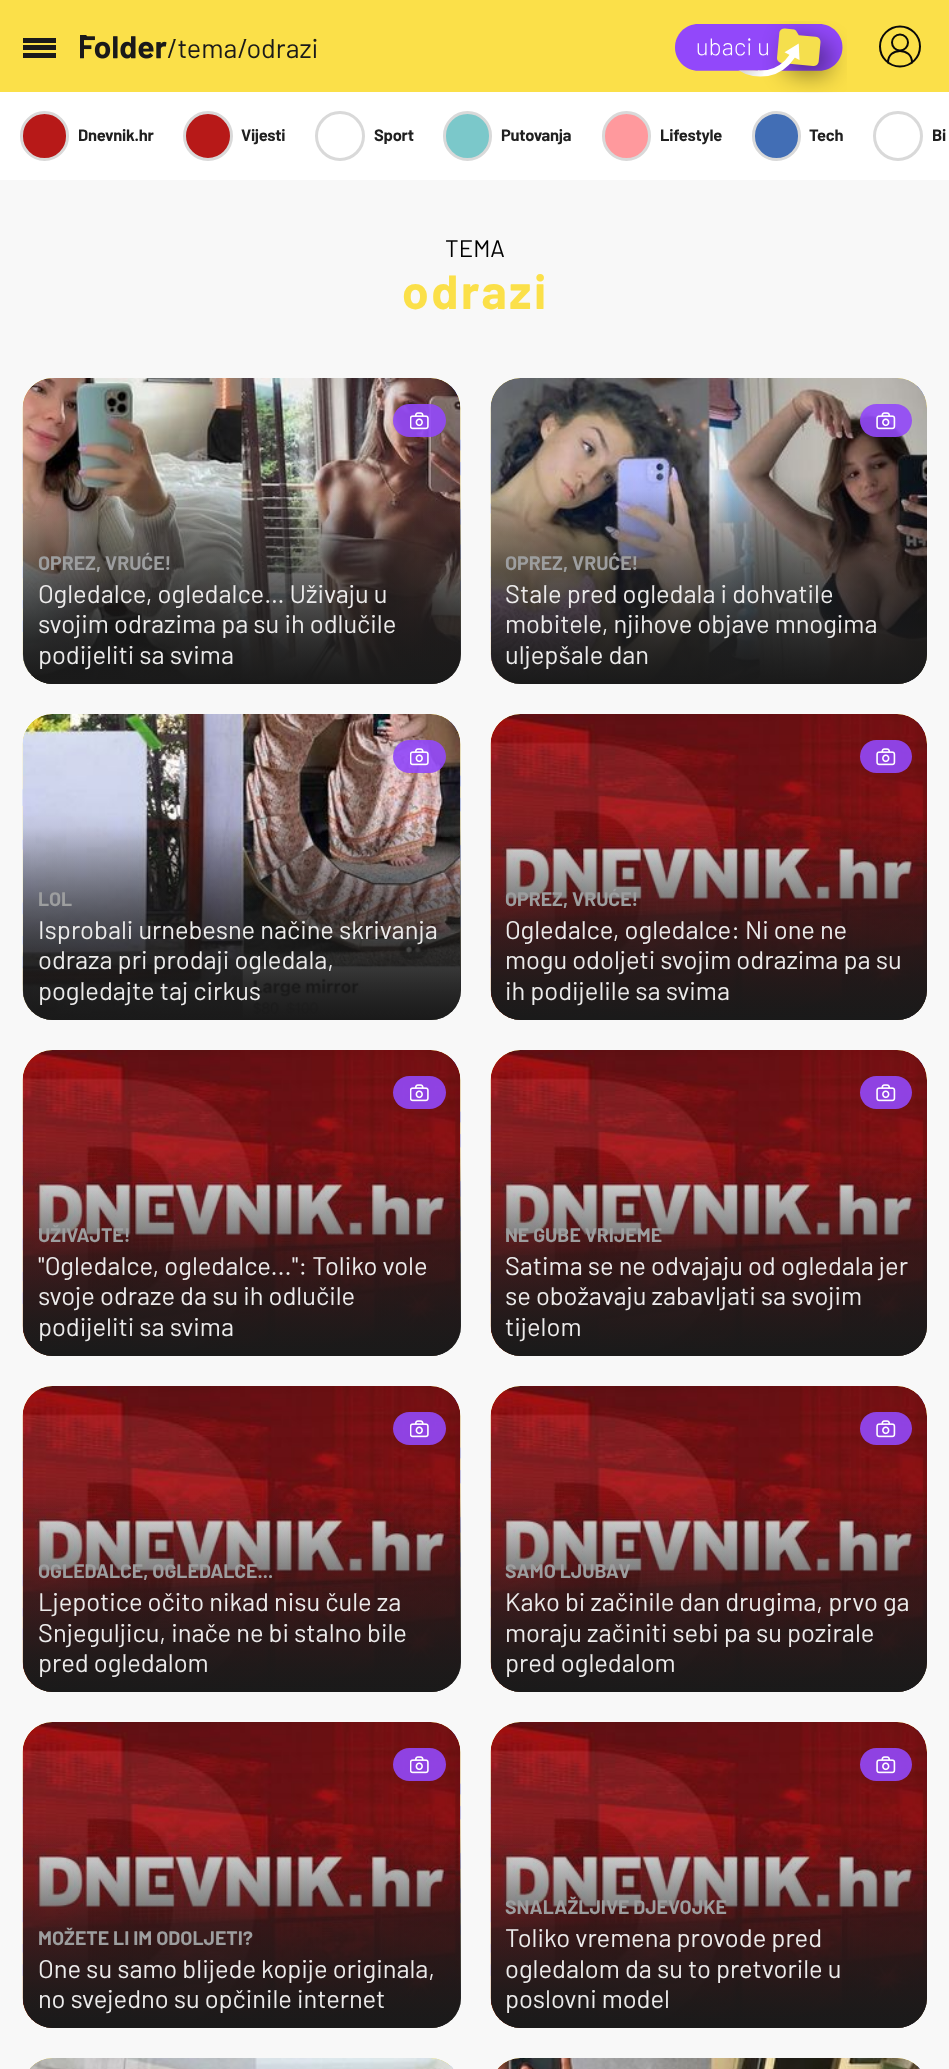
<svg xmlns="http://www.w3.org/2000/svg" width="949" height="2069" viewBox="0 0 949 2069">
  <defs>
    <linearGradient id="g1" gradientUnits="userSpaceOnUse" x1="242" y1="378" x2="242" y2="684"><stop offset="0.37" stop-color="#1a1a1a" stop-opacity="0"/><stop offset="1" stop-color="#1a1a1a"/></linearGradient>
    <linearGradient id="g2" gradientUnits="userSpaceOnUse" x1="242" y1="378" x2="242" y2="684"><stop offset="0.32" stop-color="#1a1a1a" stop-opacity="0"/><stop offset="1" stop-color="#1a1a1a" stop-opacity="0.7"/></linearGradient>
    <linearGradient id="g3" gradientUnits="userSpaceOnUse" x1="709" y1="378" x2="709" y2="684"><stop offset="0.37" stop-color="#1a1a1a" stop-opacity="0"/><stop offset="1" stop-color="#1a1a1a"/></linearGradient>
    <linearGradient id="g4" gradientUnits="userSpaceOnUse" x1="709" y1="378" x2="709" y2="684"><stop offset="0.32" stop-color="#1a1a1a" stop-opacity="0"/><stop offset="1" stop-color="#1a1a1a" stop-opacity="0.7"/></linearGradient>
    <linearGradient id="g5" gradientUnits="userSpaceOnUse" x1="242" y1="714" x2="242" y2="1020"><stop offset="0.37" stop-color="#1a1a1a" stop-opacity="0"/><stop offset="1" stop-color="#1a1a1a"/></linearGradient>
    <linearGradient id="g6" gradientUnits="userSpaceOnUse" x1="242" y1="714" x2="242" y2="1020"><stop offset="0.32" stop-color="#1a1a1a" stop-opacity="0"/><stop offset="1" stop-color="#1a1a1a" stop-opacity="0.7"/></linearGradient>
    <linearGradient id="g7" gradientUnits="userSpaceOnUse" x1="709" y1="714" x2="709" y2="1020"><stop offset="0.37" stop-color="#1a1a1a" stop-opacity="0"/><stop offset="1" stop-color="#1a1a1a"/></linearGradient>
    <linearGradient id="g8" gradientUnits="userSpaceOnUse" x1="709" y1="714" x2="709" y2="1020"><stop offset="0.32" stop-color="#1a1a1a" stop-opacity="0"/><stop offset="1" stop-color="#1a1a1a" stop-opacity="0.7"/></linearGradient>
    <linearGradient id="g9" gradientUnits="userSpaceOnUse" x1="242" y1="1050" x2="242" y2="1356"><stop offset="0.37" stop-color="#1a1a1a" stop-opacity="0"/><stop offset="1" stop-color="#1a1a1a"/></linearGradient>
    <linearGradient id="g10" gradientUnits="userSpaceOnUse" x1="242" y1="1050" x2="242" y2="1356"><stop offset="0.32" stop-color="#1a1a1a" stop-opacity="0"/><stop offset="1" stop-color="#1a1a1a" stop-opacity="0.7"/></linearGradient>
    <linearGradient id="g11" gradientUnits="userSpaceOnUse" x1="709" y1="1050" x2="709" y2="1356"><stop offset="0.37" stop-color="#1a1a1a" stop-opacity="0"/><stop offset="1" stop-color="#1a1a1a"/></linearGradient>
    <linearGradient id="g12" gradientUnits="userSpaceOnUse" x1="709" y1="1050" x2="709" y2="1356"><stop offset="0.32" stop-color="#1a1a1a" stop-opacity="0"/><stop offset="1" stop-color="#1a1a1a" stop-opacity="0.7"/></linearGradient>
    <linearGradient id="g13" gradientUnits="userSpaceOnUse" x1="242" y1="1386" x2="242" y2="1692"><stop offset="0.37" stop-color="#1a1a1a" stop-opacity="0"/><stop offset="1" stop-color="#1a1a1a"/></linearGradient>
    <linearGradient id="g14" gradientUnits="userSpaceOnUse" x1="242" y1="1386" x2="242" y2="1692"><stop offset="0.32" stop-color="#1a1a1a" stop-opacity="0"/><stop offset="1" stop-color="#1a1a1a" stop-opacity="0.7"/></linearGradient>
    <linearGradient id="g15" gradientUnits="userSpaceOnUse" x1="709" y1="1386" x2="709" y2="1692"><stop offset="0.37" stop-color="#1a1a1a" stop-opacity="0"/><stop offset="1" stop-color="#1a1a1a"/></linearGradient>
    <linearGradient id="g16" gradientUnits="userSpaceOnUse" x1="709" y1="1386" x2="709" y2="1692"><stop offset="0.32" stop-color="#1a1a1a" stop-opacity="0"/><stop offset="1" stop-color="#1a1a1a" stop-opacity="0.7"/></linearGradient>
    <linearGradient id="g17" gradientUnits="userSpaceOnUse" x1="242" y1="1722" x2="242" y2="2028"><stop offset="0.37" stop-color="#1a1a1a" stop-opacity="0"/><stop offset="1" stop-color="#1a1a1a"/></linearGradient>
    <linearGradient id="g18" gradientUnits="userSpaceOnUse" x1="242" y1="1722" x2="242" y2="2028"><stop offset="0.32" stop-color="#1a1a1a" stop-opacity="0"/><stop offset="1" stop-color="#1a1a1a" stop-opacity="0.7"/></linearGradient>
    <linearGradient id="g19" gradientUnits="userSpaceOnUse" x1="709" y1="1722" x2="709" y2="2028"><stop offset="0.37" stop-color="#1a1a1a" stop-opacity="0"/><stop offset="1" stop-color="#1a1a1a"/></linearGradient>
    <linearGradient id="g20" gradientUnits="userSpaceOnUse" x1="709" y1="1722" x2="709" y2="2028"><stop offset="0.32" stop-color="#1a1a1a" stop-opacity="0"/><stop offset="1" stop-color="#1a1a1a" stop-opacity="0.7"/></linearGradient>
  </defs>
  <rect width="100%" height="100%" fill="#f8f8f8"/>
  <path d="M0 0h949v92H0z" fill="#fbe049"/>
  <path d="M23 45h33v5H23z" fill="#1a1a1a"/>
  <path d="M23 38h33v5H23z" fill="#1a1a1a"/>
  <path d="M23 53h33v5H23z" fill="#1a1a1a"/>
  <image x="80" y="35" width="87" height="24" href="img/1.png"/>
  <path d="M0 92h949v88H0z" fill="#fff"/>
  <image x="675" y="21" width="172" height="72" href="img/2.png"/>
  <path d="M912 62.5C912 47 888 47 888 62.5" fill="none" stroke="#0a0a0a" stroke-width="2" stroke-linecap="round" stroke-linejoin="round"/>
  <circle cx="900" cy="42.5" r="8" fill="none" stroke="#0a0a0a" stroke-width="2"/>
  <circle cx="900" cy="46.5" r="20" fill="none" stroke="#0a0a0a" stroke-width="2"/>
  <rect x="21.5" y="112.5" width="46" height="47" rx="23" fill="#b71918" stroke="#d9d9d9" stroke-width="3"/>
  <circle cx="208" cy="136" r="23.5" fill="#b71918" stroke="#d9d9d9" stroke-width="3"/>
  <circle cx="340" cy="136" r="23.5" fill="none" stroke="#d9d9d9" stroke-width="3"/>
  <rect x="444.5" y="112.5" width="46" height="47" rx="23" fill="#7bc8ca" stroke="#d9d9d9" stroke-width="3"/>
  <rect x="603.5" y="112.5" width="46" height="47" rx="23" fill="#ff999d" stroke="#d9d9d9" stroke-width="3"/>
  <rect x="753.5" y="112.5" width="46" height="47" rx="23" fill="#426eb5" stroke="#d9d9d9" stroke-width="3"/>
  <circle cx="898" cy="136" r="23.5" fill="none" stroke="#d9d9d9" stroke-width="3"/>
  <image x="22" y="378" width="439" height="306" href="img/3.png"/>
  <image x="22" y="378" width="439" height="306" href="img/4.png"/>
  <rect x="23" y="378" width="438" height="306" rx="30" fill="url(#g1)"/>
  <rect x="23" y="378" width="438" height="306" rx="30" fill="url(#g2)"/>
  <rect x="393" y="404" width="53" height="33" rx="16.5" fill="#9248fae6"/>
  <image x="410" y="412" width="19" height="18" href="img/5.png"/>
  <image x="490" y="378" width="437" height="306" href="img/6.png"/>
  <image x="490" y="378" width="437" height="306" href="img/7.png"/>
  <rect x="491" y="378" width="436" height="306" rx="30" fill="url(#g3)"/>
  <rect x="491" y="378" width="436" height="306" rx="30" fill="url(#g4)"/>
  <rect x="860" y="404" width="52" height="33" rx="16.5" fill="#9248fae6"/>
  <image x="876" y="412" width="20" height="18" href="img/8.png"/>
  <image x="22" y="714" width="439" height="306" href="img/9.png"/>
  <image x="22" y="714" width="439" height="306" href="img/10.png"/>
  <rect x="23" y="714" width="438" height="306" rx="30" fill="url(#g5)"/>
  <rect x="23" y="714" width="438" height="306" rx="30" fill="url(#g6)"/>
  <rect x="393" y="740" width="53" height="33" rx="16.5" fill="#9248fae6"/>
  <image x="410" y="748" width="19" height="18" href="img/11.png"/>
  <image x="490" y="714" width="437" height="306" href="img/12.png"/>
  <image x="490" y="714" width="437" height="306" href="img/13.png"/>
  <rect x="491" y="714" width="436" height="306" rx="30" fill="url(#g7)"/>
  <rect x="491" y="714" width="436" height="306" rx="30" fill="url(#g8)"/>
  <rect x="860" y="740" width="52" height="33" rx="16.5" fill="#9248fae6"/>
  <image x="876" y="748" width="20" height="18" href="img/14.png"/>
  <image x="22" y="1050" width="439" height="306" href="img/3.png"/>
  <image x="22" y="1050" width="439" height="306" href="img/15.png"/>
  <rect x="23" y="1050" width="438" height="306" rx="30" fill="url(#g9)"/>
  <rect x="23" y="1050" width="438" height="306" rx="30" fill="url(#g10)"/>
  <rect x="393" y="1076" width="53" height="33" rx="16.5" fill="#9248fae6"/>
  <image x="410" y="1084" width="19" height="18" href="img/16.png"/>
  <image x="490" y="1050" width="437" height="306" href="img/6.png"/>
  <image x="490" y="1050" width="437" height="306" href="img/17.png"/>
  <rect x="491" y="1050" width="436" height="306" rx="30" fill="url(#g11)"/>
  <rect x="491" y="1050" width="436" height="306" rx="30" fill="url(#g12)"/>
  <rect x="860" y="1076" width="52" height="33" rx="16.5" fill="#9248fae6"/>
  <image x="876" y="1084" width="20" height="18" href="img/14.png"/>
  <image x="22" y="1386" width="439" height="306" href="img/18.png"/>
  <image x="22" y="1386" width="439" height="306" href="img/15.png"/>
  <rect x="23" y="1386" width="438" height="306" rx="30" fill="url(#g13)"/>
  <rect x="23" y="1386" width="438" height="306" rx="30" fill="url(#g14)"/>
  <rect x="393" y="1412" width="53" height="33" rx="16.5" fill="#9248fae6"/>
  <image x="410" y="1420" width="19" height="18" href="img/16.png"/>
  <image x="490" y="1386" width="437" height="306" href="img/19.png"/>
  <image x="490" y="1386" width="437" height="306" href="img/17.png"/>
  <rect x="491" y="1386" width="436" height="306" rx="30" fill="url(#g15)"/>
  <rect x="491" y="1386" width="436" height="306" rx="30" fill="url(#g16)"/>
  <rect x="860" y="1412" width="52" height="33" rx="16.5" fill="#9248fae6"/>
  <image x="876" y="1420" width="20" height="18" href="img/14.png"/>
  <image x="22" y="1722" width="439" height="306" href="img/3.png"/>
  <image x="22" y="1722" width="439" height="306" href="img/20.png"/>
  <rect x="23" y="1722" width="438" height="306" rx="30" fill="url(#g17)"/>
  <rect x="23" y="1722" width="438" height="306" rx="30" fill="url(#g18)"/>
  <rect x="393" y="1748" width="53" height="33" rx="16.5" fill="#9248fae6"/>
  <image x="410" y="1756" width="19" height="18" href="img/16.png"/>
  <image x="490" y="1722" width="437" height="306" href="img/6.png"/>
  <image x="490" y="1722" width="437" height="306" href="img/21.png"/>
  <rect x="491" y="1722" width="436" height="306" rx="30" fill="url(#g19)"/>
  <rect x="491" y="1722" width="436" height="306" rx="30" fill="url(#g20)"/>
  <rect x="860" y="1748" width="52" height="33" rx="16.5" fill="#9248fae6"/>
  <image x="876" y="1756" width="20" height="18" href="img/14.png"/>
  <image x="29" y="2058" width="425" height="11" href="img/22.png"/>
  <image x="30" y="2058" width="423" height="11" href="img/23.png"/>
  <image x="497" y="2058" width="423" height="11" href="img/24.png"/>
  <image x="497" y="2058" width="423" height="11" href="img/25.png"/>
  <text x="167" y="58" font-family="Barlow" font-size="27" fill="#1a1a1a">/tema/odrazi</text>
  <g font-family="Barlow" font-size="16.5" font-weight="bold" letter-spacing="-0.25" fill="#202020">
    <text x="78" y="141">Dnevnik.hr</text>
    <text x="241" y="141">Vijesti</text>
    <text x="374" y="141">Sport</text>
    <text x="501" y="141">Putovanja</text>
    <text x="660" y="141">Lifestyle</text>
    <text x="809" y="141">Tech</text>
    <text x="932" y="141">Bi</text>
  </g>
  <text x="445" y="257" font-family="Barlow" font-size="24" fill="#000">TEMA</text>
  <text x="402" y="309" font-family="Barlow" font-size="48" font-weight="bold" letter-spacing="2.5" fill="#fbe049">odrazi</text>
  <text x="38" y="570" font-family="Barlow" font-size="19.5" font-weight="bold" fill="#9d9e9f">OPREZ, VRUĆE!</text>
  <g font-family="Barlow" font-size="25.5" fill="#ecebeb">
    <text x="38" y="603">Ogledalce, ogledalce… Uživaju u</text>
    <text x="38" y="633">svojim odrazima pa su ih odlučile</text>
    <text x="38" y="664">podijeliti sa svima</text>
  </g>
  <text x="505" y="570" font-family="Barlow" font-size="19.5" font-weight="bold" fill="#9d9e9f">OPREZ, VRUĆE!</text>
  <g font-family="Barlow" font-size="25.5" fill="#ecebeb">
    <text x="505" y="603">Stale pred ogledala i dohvatile</text>
    <text x="505" y="633">mobitele, njihove objave mnogima</text>
    <text x="505" y="664">uljepšale dan</text>
  </g>
  <text x="38" y="906" font-family="Barlow" font-size="19.5" font-weight="bold" fill="#9d9e9f">LOL</text>
  <g font-family="Barlow" font-size="25.5" fill="#ecebeb">
    <text x="38" y="939">Isprobali urnebesne načine skrivanja</text>
    <text x="38" y="969">odraza pri prodaji ogledala,</text>
    <text x="38" y="1000">pogledajte taj cirkus</text>
  </g>
  <text x="505" y="906" font-family="Barlow" font-size="19.5" font-weight="bold" fill="#9d9e9f">OPREZ, VRUĆE!</text>
  <g font-family="Barlow" font-size="25.5" fill="#ecebeb">
    <text x="505" y="939">Ogledalce, ogledalce: Ni one ne</text>
    <text x="505" y="969">mogu odoljeti svojim odrazima pa su</text>
    <text x="505" y="1000">ih podijelile sa svima</text>
  </g>
  <text x="38" y="1242" font-family="Barlow" font-size="19.5" font-weight="bold" fill="#9d9e9f">UŽIVAJTE!</text>
  <g font-family="Barlow" font-size="25.5" fill="#ecebeb">
    <text x="38" y="1275">''Ogledalce, ogledalce...'': Toliko vole</text>
    <text x="38" y="1305">svoje odraze da su ih odlučile</text>
    <text x="38" y="1336">podijeliti sa svima</text>
  </g>
  <text x="505" y="1242" font-family="Barlow" font-size="19.5" font-weight="bold" fill="#9d9e9f">NE GUBE VRIJEME</text>
  <g font-family="Barlow" font-size="25.5" fill="#ecebeb">
    <text x="505" y="1275">Satima se ne odvajaju od ogledala jer</text>
    <text x="505" y="1305">se obožavaju zabavljati sa svojim</text>
    <text x="505" y="1336">tijelom</text>
  </g>
  <text x="38" y="1578" font-family="Barlow" font-size="19.5" font-weight="bold" fill="#9d9e9f">OGLEDALCE, OGLEDALCE...</text>
  <g font-family="Barlow" font-size="25.5" fill="#ecebeb">
    <text x="38" y="1611">Ljepotice očito nikad nisu čule za</text>
    <text x="38" y="1642">Snjeguljicu, inače ne bi stalno bile</text>
    <text x="38" y="1672">pred ogledalom</text>
  </g>
  <text x="505" y="1578" font-family="Barlow" font-size="19.5" font-weight="bold" fill="#9d9e9f">SAMO LJUBAV</text>
  <g font-family="Barlow" font-size="25.5" fill="#ecebeb">
    <text x="505" y="1611">Kako bi začinile dan drugima, prvo ga</text>
    <text x="505" y="1642">moraju začiniti sebi pa su pozirale</text>
    <text x="505" y="1672">pred ogledalom</text>
  </g>
  <text x="38" y="1945" font-family="Barlow" font-size="19.5" font-weight="bold" fill="#9d9e9f">MOŽETE LI IM ODOLJETI?</text>
  <g font-family="Barlow" font-size="25.5" fill="#ecebeb">
    <text x="38" y="1978">One su samo blijede kopije originala,</text>
    <text x="38" y="2008">no svejedno su opčinile internet</text>
  </g>
  <text x="505" y="1914" font-family="Barlow" font-size="19.5" font-weight="bold" fill="#9d9e9f">SNALAŽLJIVE DJEVOJKE</text>
  <g font-family="Barlow" font-size="25.5" fill="#ecebeb">
    <text x="505" y="1947">Toliko vremena provode pred</text>
    <text x="505" y="1978">ogledalom da su to pretvorile u</text>
    <text x="505" y="2008">poslovni model</text>
  </g>
</svg>
